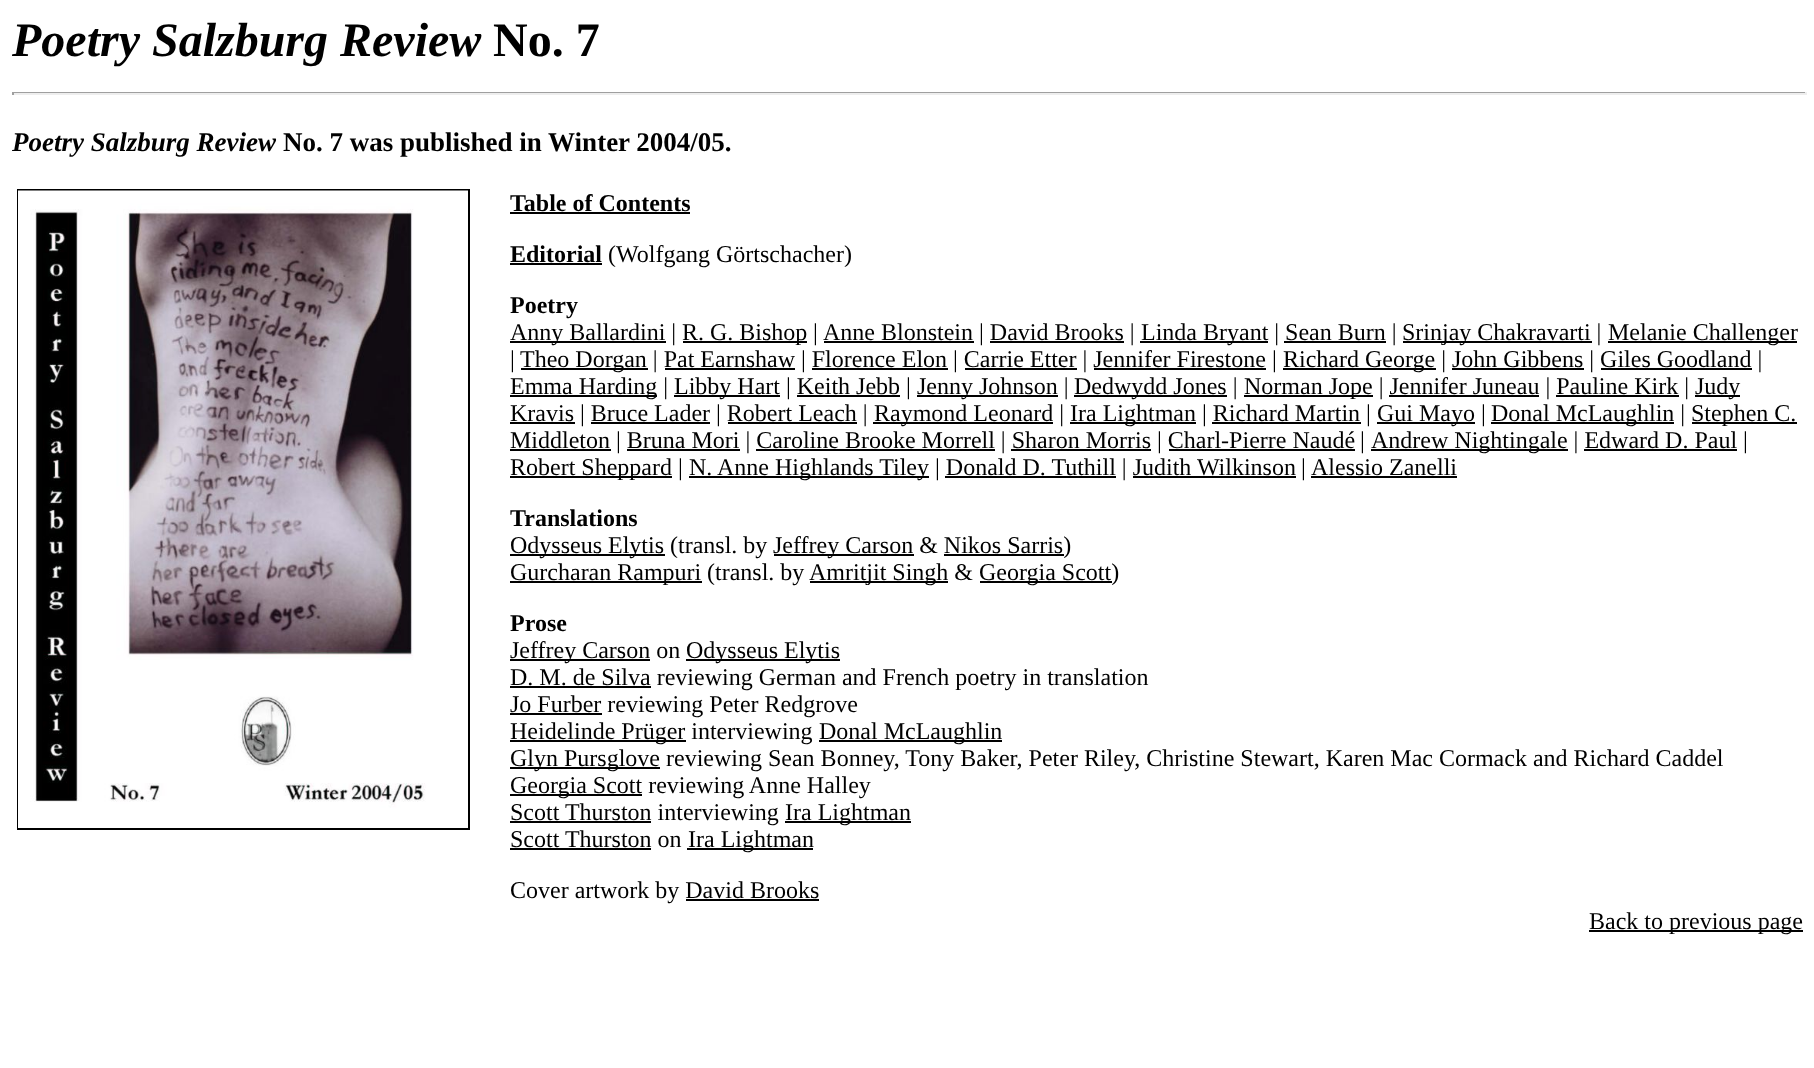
<svg xmlns="http://www.w3.org/2000/svg" width="1814" height="1068" viewBox="0 0 1814 1068">
  <rect width="100%" height="100%" fill="#fff"/>
  <path d="M12 92h1794v1H12z" fill="#9f9f9f"/>
  <path d="M1805 92h2v3H1805z" fill="#eee"/>
  <path d="M12 93h1794v2H12z" fill="#eee"/>
  <path d="M12 92h2v3H12z" fill="#9f9f9f"/>
  <path d="M18 190h451v639H18z" fill="none" stroke="#000" stroke-width="2"/>
  <image x="18" y="190" width="450" height="638" href="img/1.png"/>
  <path d="M510 212h180v2H510z" fill="#000"/>
  <path d="M510 263h92v2H510z" fill="#000"/>
  <path d="M510 341h156v2H510z" fill="#000"/>
  <path d="M683 341h124v2H683z" fill="#000"/>
  <path d="M824 341h150v2H824z" fill="#000"/>
  <path d="M1140 341h128v2H1140z" fill="#000"/>
  <path d="M1403 341h189v2H1403z" fill="#000"/>
  <path d="M1608 341h189v2H1608z" fill="#000"/>
  <path d="M990 341h134v2H990z" fill="#000"/>
  <path d="M1284 341h102v2H1284z" fill="#000"/>
  <path d="M521 368h127v2H521z" fill="#000"/>
  <path d="M1283 368h153v2H1283z" fill="#000"/>
  <path d="M665 368h130v2H665z" fill="#000"/>
  <path d="M812 368h136v2H812z" fill="#000"/>
  <path d="M965 368h112v2H965z" fill="#000"/>
  <path d="M1094 368h172v2H1094z" fill="#000"/>
  <path d="M1452 368h132v2H1452z" fill="#000"/>
  <path d="M1601 368h151v2H1601z" fill="#000"/>
  <path d="M510 395h147v2H510z" fill="#000"/>
  <path d="M674 395h106v2H674z" fill="#000"/>
  <path d="M917 395h141v2H917z" fill="#000"/>
  <path d="M1074 395h153v2H1074z" fill="#000"/>
  <path d="M1244 395h129v2H1244z" fill="#000"/>
  <path d="M1695 395h45v2H1695z" fill="#000"/>
  <path d="M797 395h103v2H797z" fill="#000"/>
  <path d="M1389 395h150v2H1389z" fill="#000"/>
  <path d="M1556 395h123v2H1556z" fill="#000"/>
  <path d="M510 422h65v2H510z" fill="#000"/>
  <path d="M873 422h180v2H873z" fill="#000"/>
  <path d="M1070 422h126v2H1070z" fill="#000"/>
  <path d="M1377 422h98v2H1377z" fill="#000"/>
  <path d="M1491 422h183v2H1491z" fill="#000"/>
  <path d="M1692 422h105v2H1692z" fill="#000"/>
  <path d="M591 422h119v2H591z" fill="#000"/>
  <path d="M728 422h129v2H728z" fill="#000"/>
  <path d="M1212 422h149v2H1212z" fill="#000"/>
  <path d="M510 449h101v2H510z" fill="#000"/>
  <path d="M1371 449h197v2H1371z" fill="#000"/>
  <path d="M627 449h113v2H627z" fill="#000"/>
  <path d="M756 449h239v2H756z" fill="#000"/>
  <path d="M1011 449h140v2H1011z" fill="#000"/>
  <path d="M1169 449h186v2H1169z" fill="#000"/>
  <path d="M1584 449h153v2H1584z" fill="#000"/>
  <path d="M510 476h162v2H510z" fill="#000"/>
  <path d="M689 476h240v2H689z" fill="#000"/>
  <path d="M1311 476h146v2H1311z" fill="#000"/>
  <path d="M945 476h171v2H945z" fill="#000"/>
  <path d="M1133 476h163v2H1133z" fill="#000"/>
  <path d="M510 554h155v2H510z" fill="#000"/>
  <path d="M774 554h140v2H774z" fill="#000"/>
  <path d="M944 554h120v2H944z" fill="#000"/>
  <path d="M510 581h192v2H510z" fill="#000"/>
  <path d="M810 581h138v2H810z" fill="#000"/>
  <path d="M980 581h132v2H980z" fill="#000"/>
  <path d="M510 659h140v2H510z" fill="#000"/>
  <path d="M686 659h154v2H686z" fill="#000"/>
  <path d="M510 686h141v2H510z" fill="#000"/>
  <path d="M510 713h92v2H510z" fill="#000"/>
  <path d="M510 740h176v2H510z" fill="#000"/>
  <path d="M819 740h183v2H819z" fill="#000"/>
  <path d="M510 767h150v2H510z" fill="#000"/>
  <path d="M510 794h132v2H510z" fill="#000"/>
  <path d="M510 821h141v2H510z" fill="#000"/>
  <path d="M785 821h126v2H785z" fill="#000"/>
  <path d="M510 848h141v2H510z" fill="#000"/>
  <path d="M687 848h126v2H687z" fill="#000"/>
  <path d="M686 899h133v2H686z" fill="#000"/>
  <path d="M1589 930h214v2H1589z" fill="#000"/>
  <text x="12" y="56" font-family="Liberation Serif" font-size="48" font-weight="bold" font-style="italic" fill="#000">Poetry Salzburg Review</text>
  <text x="493" y="56" font-family="Liberation Serif" font-size="48" font-weight="bold" fill="#000">No. 7</text>
  <text x="12" y="151" font-family="Liberation Serif" font-size="27" font-weight="bold" font-style="italic" fill="#000">Poetry Salzburg Review</text>
  <text x="283" y="151" font-family="Liberation Serif" font-size="27" font-weight="bold" fill="#000">No. 7 was published in Winter 2004/05.</text>
  <g font-family="Liberation Serif" font-size="24" font-weight="bold" fill="#000">
    <text x="510" y="211">Table of Contents</text>
    <text x="510" y="262">Editorial</text>
  </g>
  <text x="608" y="262" font-family="Liberation Serif" font-size="24" fill="#000">(Wolfgang Görtschacher)</text>
  <text x="510" y="313" font-family="Liberation Serif" font-size="24" font-weight="bold" fill="#000">Poetry</text>
  <g font-family="Liberation Serif" font-size="24" fill="#000">
    <text x="510" y="340">Anny Ballardini |</text>
    <text x="682" y="340">R. G. Bishop</text>
    <text x="813" y="340">|</text>
    <text x="823" y="340">Anne Blonstein | David Brooks |</text>
    <text x="1141" y="340">Linda Bryant | Sean Burn |</text>
    <text x="1402" y="340">Srinjay Chakravarti |</text>
    <text x="1608" y="340">Melanie Challenger</text>
    <text x="510" y="367">|</text>
    <text x="520" y="367">Theo Dorgan | Pat Earnshaw | Florence Elon | Carrie Etter | Jennifer Firestone |</text>
    <text x="1283" y="367">Richard George | John Gibbens | Giles Goodland |</text>
    <text x="510" y="394">Emma Harding |</text>
    <text x="674" y="394">Libby Hart | Keith Jebb |</text>
    <text x="917" y="394">Jenny Johnson |</text>
    <text x="1074" y="394">Dedwydd Jones |</text>
    <text x="1244" y="394">Norman Jope | Jennifer Juneau | Pauline Kirk |</text>
    <text x="1695" y="394">Judy</text>
    <text x="510" y="421">Kravis | Bruce Lader | Robert Leach |</text>
    <text x="874" y="421">Raymond Leonard |</text>
    <text x="1070" y="421">Ira Lightman | Richard Martin |</text>
    <text x="1377" y="421">Gui Mayo |</text>
    <text x="1491" y="421">Donal McLaughlin |</text>
    <text x="1691" y="421">Stephen C.</text>
    <text x="510" y="448">Middleton | Bruna Mori | Caroline Brooke Morrell | Sharon Morris | Charl-Pierre Naudé</text>
    <text x="1360" y="448">|</text>
    <text x="1371" y="448">Andrew Nightingale | Edward D. Paul |</text>
    <text x="510" y="475">Robert Sheppard |</text>
    <text x="689" y="475">N. Anne Highlands Tiley | Donald D. Tuthill | Judith Wilkinson</text>
    <text x="1301" y="475">|</text>
    <text x="1311" y="475">Alessio Zanelli</text>
  </g>
  <text x="510" y="526" font-family="Liberation Serif" font-size="24" font-weight="bold" fill="#000">Translations</text>
  <g font-family="Liberation Serif" font-size="24" fill="#000">
    <text x="510" y="553">Odysseus Elytis (transl. by</text>
    <text x="773" y="553">Jeffrey Carson &amp; Nikos Sarris)</text>
    <text x="510" y="580">Gurcharan Rampuri</text>
    <text x="707" y="580">(transl. by</text>
    <text x="809" y="580">Amritjit Singh &amp;</text>
    <text x="979" y="580">Georgia Scott)</text>
  </g>
  <text x="510" y="631" font-family="Liberation Serif" font-size="24" font-weight="bold" fill="#000">Prose</text>
  <g font-family="Liberation Serif" font-size="24" fill="#000">
    <text x="510" y="658">Jeffrey Carson on</text>
    <text x="686" y="658">Odysseus Elytis</text>
    <text x="510" y="685">D. M. de Silva reviewing German and French poetry in translation</text>
    <text x="510" y="712">Jo Furber reviewing Peter Redgrove</text>
    <text x="510" y="739">Heidelinde Prüger interviewing</text>
    <text x="819" y="739">Donal McLaughlin</text>
    <text x="510" y="766">Glyn Pursglove reviewing Sean Bonney, Tony Baker, Peter Riley, Christine Stewart, Karen Mac Cormack and Richard Caddel</text>
    <text x="510" y="793">Georgia Scott reviewing Anne Halley</text>
    <text x="510" y="820">Scott Thurston interviewing</text>
    <text x="785" y="820">Ira Lightman</text>
    <text x="510" y="847">Scott Thurston on</text>
    <text x="688" y="847">Ira Lightman</text>
    <text x="510" y="898">Cover artwork by David Brooks</text>
    <text x="1589" y="929">Back to previous page</text>
  </g>
</svg>
